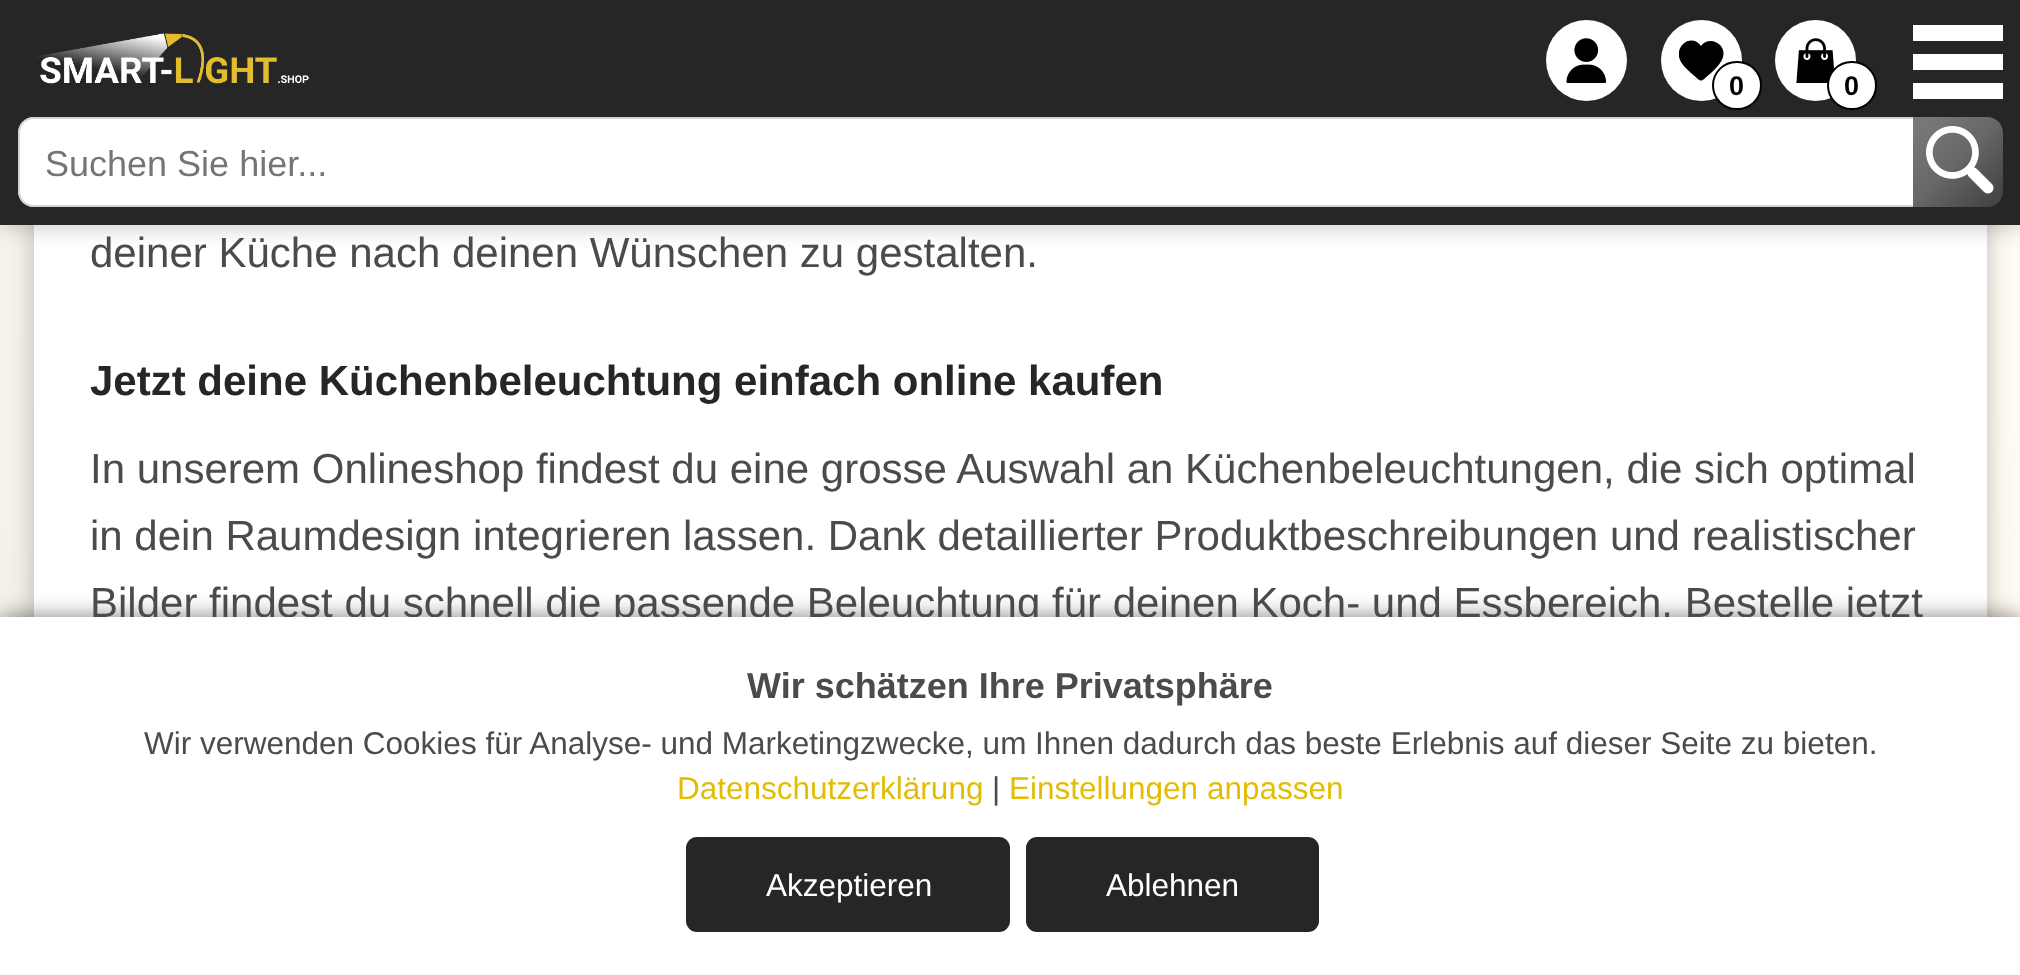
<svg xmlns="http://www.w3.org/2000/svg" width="2020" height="975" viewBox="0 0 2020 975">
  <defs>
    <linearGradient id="g1" gradientUnits="userSpaceOnUse" x1="-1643" y1="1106" x2="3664" y2="-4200"><stop offset="0" stop-color="#e4e4e4"/><stop offset="0.34" stop-color="#fffaef"/><stop offset="0.66" stop-color="#fff"/><stop offset="1" stop-color="#fff9eb"/></linearGradient>
    <clipPath id="clip1"><path d="M1679 38h45v45H1679z"/></clipPath>
    <linearGradient id="g2" gradientUnits="userSpaceOnUse" x1="1913" y1="117" x2="2003" y2="207"><stop offset="0.1" stop-color="#787878"/><stop offset="0.5" stop-color="#666"/><stop offset="0.9" stop-color="#464646"/></linearGradient>
  </defs>
  <rect width="100%" height="100%" fill="#fff"/>
  <path d="M0 225h2020v392H0z" fill="url(#g1)"/>
  <path d="M32 -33h1957v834H32z" fill="#28282840" filter="blur(11px)"/>
  <path d="M34 225h1953v392H34z" fill="#fff"/>
  <path d="M-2 -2h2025v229H-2z" fill="#28282840" filter="blur(11px)"/>
  <path d="M0 0h2020v225H0z" fill="#262626"/>
  <image x="36" y="33" width="273" height="51" href="img/1.png"/>
  <circle cx="1586.5" cy="60.5" r="40.5" fill="#fff"/>
  <image x="1566" y="38" width="40" height="45" href="img/2.png"/>
  <circle cx="1701.5" cy="60.5" r="40.5" fill="#fff"/>
  <g clip-path="url(#clip1)">
    <path d="M1720 45C1714 39 1705 40 1701 46C1692 33 1674 45 1680 60C1682 65 1687 69 1691 73C1703 83 1699 83 1711 73C1719 66 1729 55 1720 45Z" fill="#000"/>
  </g>
  <rect x="1713" y="62" width="48" height="47" rx="23.5" fill="#fff" stroke="#000" stroke-width="2"/>
  <circle cx="1815.5" cy="60.5" r="40.5" fill="#fff"/>
  <image x="1796" y="38" width="38" height="45" href="img/3.png"/>
  <rect x="1828" y="62" width="48" height="47" rx="23.5" fill="#fff" stroke="#000" stroke-width="2"/>
  <path d="M1913 25h90v16H1913z" fill="#fff"/>
  <path d="M1913 54h90v16H1913z" fill="#fff"/>
  <path d="M1913 83h90v16H1913z" fill="#fff"/>
  <path d="M34 117H1922V207H34C25 207 18 200 18 191V133C18 124 25 117 34 117Z" fill="#fff"/>
  <path d="M34 117H1922V207H34C25 207 18 200 18 191V133C18 124 25 117 34 117ZM34 119H1922V205H34C26 205 20 199 20 191V133C20 125 26 119 34 119Z" fill="#d7d4cd" fill-rule="evenodd"/>
  <path d="M1913 117H1987C1996 117 2003 124 2003 133V191C2003 200 1996 207 1987 207H1913Z" fill="url(#g2)"/>
  <image x="1926" y="126" width="68" height="68" href="img/4.png"/>
  <path d="M0 617h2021v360H0z" fill="#00000080" filter="blur(11px)"/>
  <g font-family="Liberation Sans" font-size="27" font-weight="bold" fill="#000">
    <text x="1729" y="95">0</text>
    <text x="1844" y="95">0</text>
  </g>
  <text x="45" y="176" font-family="Liberation Sans" font-size="36" fill="#757575">Suchen Sie hier...</text>
  <text x="90" y="267" font-family="Liberation Sans" font-size="42" fill="#4b4b4b">deiner Küche nach deinen Wünschen zu gestalten.</text>
  <text x="90" y="395" font-family="Liberation Sans" font-size="42" font-weight="bold" fill="#262626">Jetzt deine Küchenbeleuchtung einfach online kaufen</text>
  <g font-family="Liberation Sans" font-size="42" fill="#4b4b4b">
    <text x="90" y="483">In unserem Onlineshop findest du eine grosse Auswahl an Küchenbeleuchtungen, die sich optimal</text>
    <text x="90" y="550">in dein Raumdesign integrieren lassen. Dank detaillierter Produktbeschreibungen und realistischer</text>
    <text x="90" y="617">Bilder findest du schnell die passende Beleuchtung für deinen Koch- und Essbereich. Bestelle jetzt</text>
  </g>
  <path d="M0 617h2020v358H0z" fill="#fff"/>
  <text x="747" y="698" font-family="Liberation Sans" font-size="36" font-weight="bold" fill="#4b4b4b">Wir schätzen Ihre Privatsphäre</text>
  <text x="144" y="754" font-family="Liberation Sans" font-size="31.5" fill="#4b4b4b">Wir verwenden Cookies für Analyse- und Marketingzwecke, um Ihnen dadurch das beste Erlebnis auf dieser Seite zu bieten.</text>
  <text x="677" y="799" font-family="Liberation Sans" font-size="31.5" fill="#e2bd05">Datenschutzerklärung</text>
  <text x="992" y="799" font-family="Liberation Sans" font-size="31.5" fill="#4b4b4b">|</text>
  <text x="1009" y="799" font-family="Liberation Sans" font-size="31.5" fill="#e2bd05">Einstellungen anpassen</text>
  <rect x="686" y="837" width="324" height="95" rx="11" fill="#262626"/>
  <text x="766" y="896" font-family="Liberation Sans" font-size="31.5" fill="#fff">Akzeptieren</text>
  <rect x="1026" y="837" width="293" height="95" rx="11" fill="#262626"/>
  <text x="1106" y="896" font-family="Liberation Sans" font-size="31.5" fill="#fff">Ablehnen</text>
</svg>
